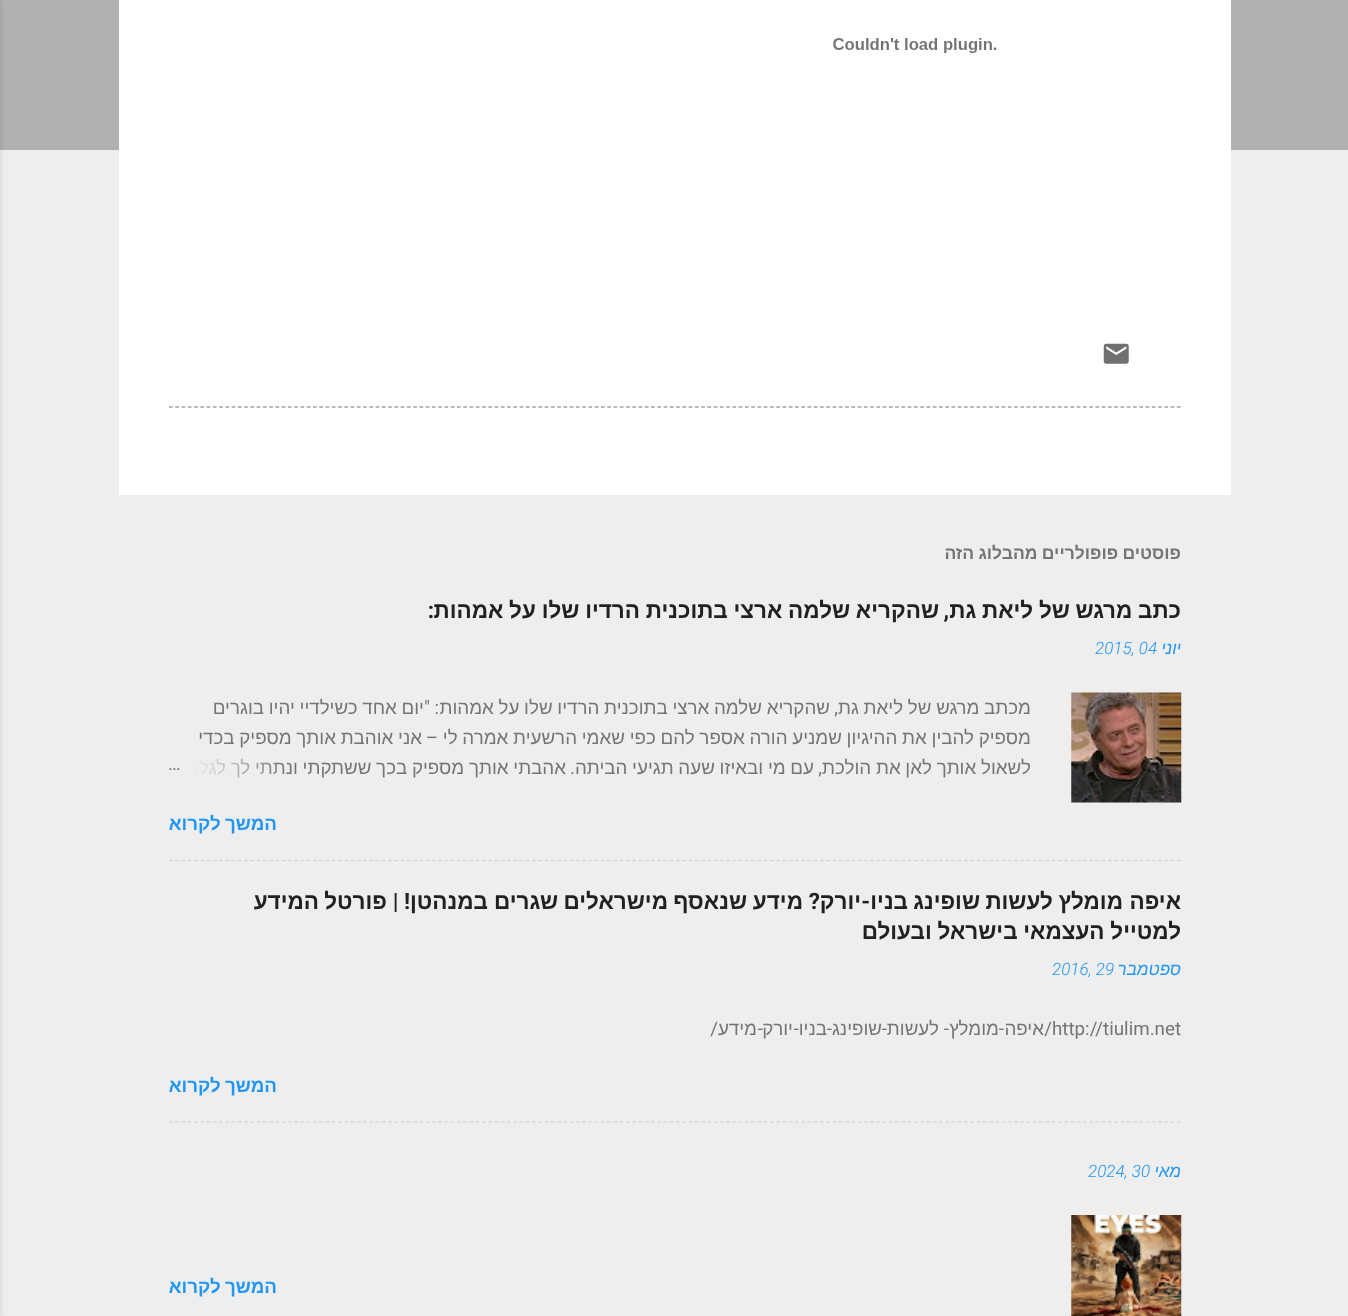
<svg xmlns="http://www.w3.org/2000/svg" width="1348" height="1316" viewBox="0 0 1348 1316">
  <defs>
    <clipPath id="clip1"><path d="M169 693h862v90H169z"/></clipPath>
    <linearGradient id="g1" gradientUnits="userSpaceOnUse" x1="169" y1="768" x2="289" y2="768"><stop offset="0" stop-color="#eee"/><stop offset="0.2" stop-color="#eee"/><stop offset="1" stop-color="#eee" stop-opacity="0"/></linearGradient>
  </defs>
  <rect width="100%" height="100%" fill="#eee"/>
  <path d="M0 0h1348v150H0z" fill="#b1b1b1"/>
  <path d="M119 0h1112v495H119z" fill="#fff"/>
  <image x="833" y="38" width="164" height="15" href="img/1.png"/>
  <image x="1103" y="343" width="26" height="21" href="img/2.png"/>
  <path d="M169 407H1181" fill="none" stroke="#757575" stroke-width="1.2" stroke-dasharray="3.75 2.51"/>
  <image x="1071" y="692" width="111" height="111" href="img/3.png"/>
  <path d="M169 860.5H1181" fill="none" stroke="#ccc" stroke-width="1.2" stroke-dasharray="3.75 2.51"/>
  <path d="M169 1122H1181" fill="none" stroke="#ccc" stroke-width="1.2" stroke-dasharray="3.75 2.51"/>
  <image x="1071" y="1215" width="111" height="101" href="img/4.png"/>
  <path d="M-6 1h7v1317H-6z" fill="#0000001a" filter="blur(2px)"/>
  <text x="1181" y="559" word-spacing="-0.5" font-family="Liberation Sans" font-size="17.5" font-weight="bold" direction="rtl" fill="#757575">פוסטים פופולריים מהבלוג הזה</text>
  <text x="1181" y="618" word-spacing="-0.5" font-family="Liberation Sans" font-size="22.5" font-weight="bold" direction="rtl" fill="#212121">כתב מרגש של ליאת גת</text>
  <text x="949" y="618" font-family="Roboto" font-size="22.5" font-weight="bold" direction="rtl" fill="#212121">,</text>
  <text x="939" y="618" word-spacing="-0.5" font-family="Liberation Sans" font-size="22.5" font-weight="bold" direction="rtl" fill="#212121">שהקריא שלמה ארצי בתוכנית הרדיו שלו על אמהות</text>
  <text x="434" y="618" font-family="Roboto" font-size="22.5" font-weight="bold" direction="rtl" fill="#212121">:</text>
  <text x="1181" y="654" font-family="Liberation Sans" font-size="17" font-style="italic" direction="rtl" fill="#2196f3">יוני</text>
  <text x="1095" y="654" font-family="Roboto" font-size="17" font-weight="300" font-style="italic" fill="#2196f3">2015, 04</text>
  <g font-family="Liberation Sans" font-size="18.75" direction="rtl" fill="#757575">
    <text x="1031" y="714" word-spacing="-0.5">מכתב מרגש של ליאת גת</text>
    <text x="830" y="714" word-spacing="-0.5">שהקריא שלמה ארצי בתוכנית הרדיו שלו על אמהות</text>
  </g>
  <text x="430" y="714" font-family="Roboto" font-size="18.75" direction="rtl" fill="#757575">"</text>
  <text x="424" y="714" word-spacing="-0.5" font-family="Liberation Sans" font-size="18.75" direction="rtl" fill="#757575">יום אחד כשילדיי יהיו בוגרים</text>
  <g font-family="Roboto" font-size="18.75" direction="rtl" fill="#757575">
    <text x="838" y="714">,</text>
    <text x="439" y="714">:</text>
  </g>
  <g clip-path="url(#clip1)">
    <text x="1031" y="744" word-spacing="-0.5" font-family="Liberation Sans" font-size="18.75" direction="rtl" fill="#757575">מספיק להבין את ההיגיון שמניע הורה אספר להם כפי שאמי הרשעית אמרה לי</text>
  </g>
  <text x="438" y="744" font-family="Roboto" font-size="18.75" direction="rtl" fill="#757575">–</text>
  <text x="422" y="744" word-spacing="-0.5" font-family="Liberation Sans" font-size="18.75" direction="rtl" fill="#757575">אני אוהבת אותך מספיק בכדי</text>
  <g clip-path="url(#clip1)">
    <text x="1031" y="774" word-spacing="-0.5" font-family="Liberation Sans" font-size="18.75" direction="rtl" fill="#757575">לשאול אותך לאן את הולכת</text>
  </g>
  <text x="822" y="774" font-family="Roboto" font-size="18.75" direction="rtl" fill="#757575">,</text>
  <text x="814" y="774" word-spacing="-0.5" font-family="Liberation Sans" font-size="18.75" direction="rtl" fill="#757575">עם מי ובאיזו שעה תגיעי הביתה</text>
  <text x="575" y="774" font-family="Roboto" font-size="18.75" direction="rtl" fill="#757575">.</text>
  <text x="566" y="774" word-spacing="-0.5" font-family="Liberation Sans" font-size="18.75" direction="rtl" fill="#757575">אהבתי אותך מספיק בכך ששתקתי ונתתי לך לגלות</text>
  <path d="M181 758h104v20H181z" fill="url(#g1)"/>
  <text x="168" y="770" font-family="Roboto" font-size="18.75" fill="#757575">…</text>
  <text x="277" y="830" word-spacing="-1" font-family="Liberation Sans" font-size="18.75" font-weight="bold" direction="rtl" fill="#2196f3">המשך לקרוא</text>
  <g font-family="Liberation Sans" font-size="22.5" font-weight="bold" direction="rtl" fill="#212121">
    <text x="1181" y="909">איפה</text>
    <text x="1123" y="909">מומלץ</text>
    <text x="1053" y="909">לעשות</text>
    <text x="980" y="909">שופינג</text>
    <text x="908" y="909">בניו</text>
  </g>
  <text x="870" y="909" font-family="Roboto" font-size="22.5" font-weight="bold" direction="rtl" fill="#212121">-</text>
  <text x="861" y="909" font-family="Liberation Sans" font-size="22.5" font-weight="bold" direction="rtl" fill="#212121">יורק</text>
  <text x="820" y="909" font-family="Roboto" font-size="22.5" font-weight="bold" direction="rtl" fill="#212121">?</text>
  <g font-family="Liberation Sans" font-size="22.5" font-weight="bold" direction="rtl" fill="#212121">
    <text x="803" y="909">מידע</text>
    <text x="747" y="909">שנאסף</text>
    <text x="668" y="909">מישראלים</text>
    <text x="558" y="909">שגרים</text>
    <text x="488" y="909">במנהטן</text>
  </g>
  <text x="410" y="909" font-family="Roboto" font-size="22.5" font-weight="bold" direction="rtl" fill="#212121">! |</text>
  <g font-family="Liberation Sans" font-size="22.5" font-weight="bold" direction="rtl" fill="#212121">
    <text x="387" y="909">פורטל</text>
    <text x="319" y="909">המידע</text>
    <text x="1181" y="939" word-spacing="-0.5">למטייל העצמאי בישראל ובעולם</text>
  </g>
  <text x="1181" y="975" font-family="Liberation Sans" font-size="17" font-style="italic" direction="rtl" fill="#2196f3">ספטמבר</text>
  <text x="1052" y="975" font-family="Roboto" font-size="17" font-weight="300" font-style="italic" fill="#2196f3">2016, 29</text>
  <text x="1052" y="1035" font-family="Roboto" font-size="18.75" fill="#757575">http://tiulim.net</text>
  <text x="1052" y="1035" font-family="Roboto" font-size="18.75" direction="rtl" fill="#757575">/</text>
  <text x="1044" y="1035" font-family="Liberation Sans" font-size="18.75" direction="rtl" fill="#757575">איפה</text>
  <text x="1004" y="1035" font-family="Roboto" font-size="18.75" direction="rtl" fill="#757575">-</text>
  <text x="999" y="1035" font-family="Liberation Sans" font-size="18.75" direction="rtl" fill="#757575">מומלץ</text>
  <text x="949" y="1035" font-family="Roboto" font-size="18.75" direction="rtl" fill="#757575">-</text>
  <text x="939" y="1035" font-family="Liberation Sans" font-size="18.75" direction="rtl" fill="#757575">לעשות</text>
  <text x="887" y="1035" font-family="Roboto" font-size="18.75" direction="rtl" fill="#757575">-</text>
  <text x="882" y="1035" font-family="Liberation Sans" font-size="18.75" direction="rtl" fill="#757575">שופינג</text>
  <text x="832" y="1035" font-family="Roboto" font-size="18.75" direction="rtl" fill="#757575">-</text>
  <text x="827" y="1035" font-family="Liberation Sans" font-size="18.75" direction="rtl" fill="#757575">בניו</text>
  <text x="799" y="1035" font-family="Roboto" font-size="18.75" direction="rtl" fill="#757575">-</text>
  <text x="793" y="1035" font-family="Liberation Sans" font-size="18.75" direction="rtl" fill="#757575">יורק</text>
  <text x="763" y="1035" font-family="Roboto" font-size="18.75" direction="rtl" fill="#757575">-</text>
  <text x="757" y="1035" font-family="Liberation Sans" font-size="18.75" direction="rtl" fill="#757575">מידע</text>
  <text x="718" y="1035" font-family="Roboto" font-size="18.75" direction="rtl" fill="#757575">/</text>
  <text x="277" y="1092" word-spacing="-1" font-family="Liberation Sans" font-size="18.75" font-weight="bold" direction="rtl" fill="#2196f3">המשך לקרוא</text>
  <text x="1181" y="1177" font-family="Liberation Sans" font-size="17" font-style="italic" direction="rtl" fill="#2196f3">מאי</text>
  <text x="1088" y="1177" font-family="Roboto" font-size="17" font-weight="300" font-style="italic" fill="#2196f3">2024, 30</text>
  <text x="277" y="1293" word-spacing="-1" font-family="Liberation Sans" font-size="18.75" font-weight="bold" direction="rtl" fill="#2196f3">המשך לקרוא</text>
</svg>
